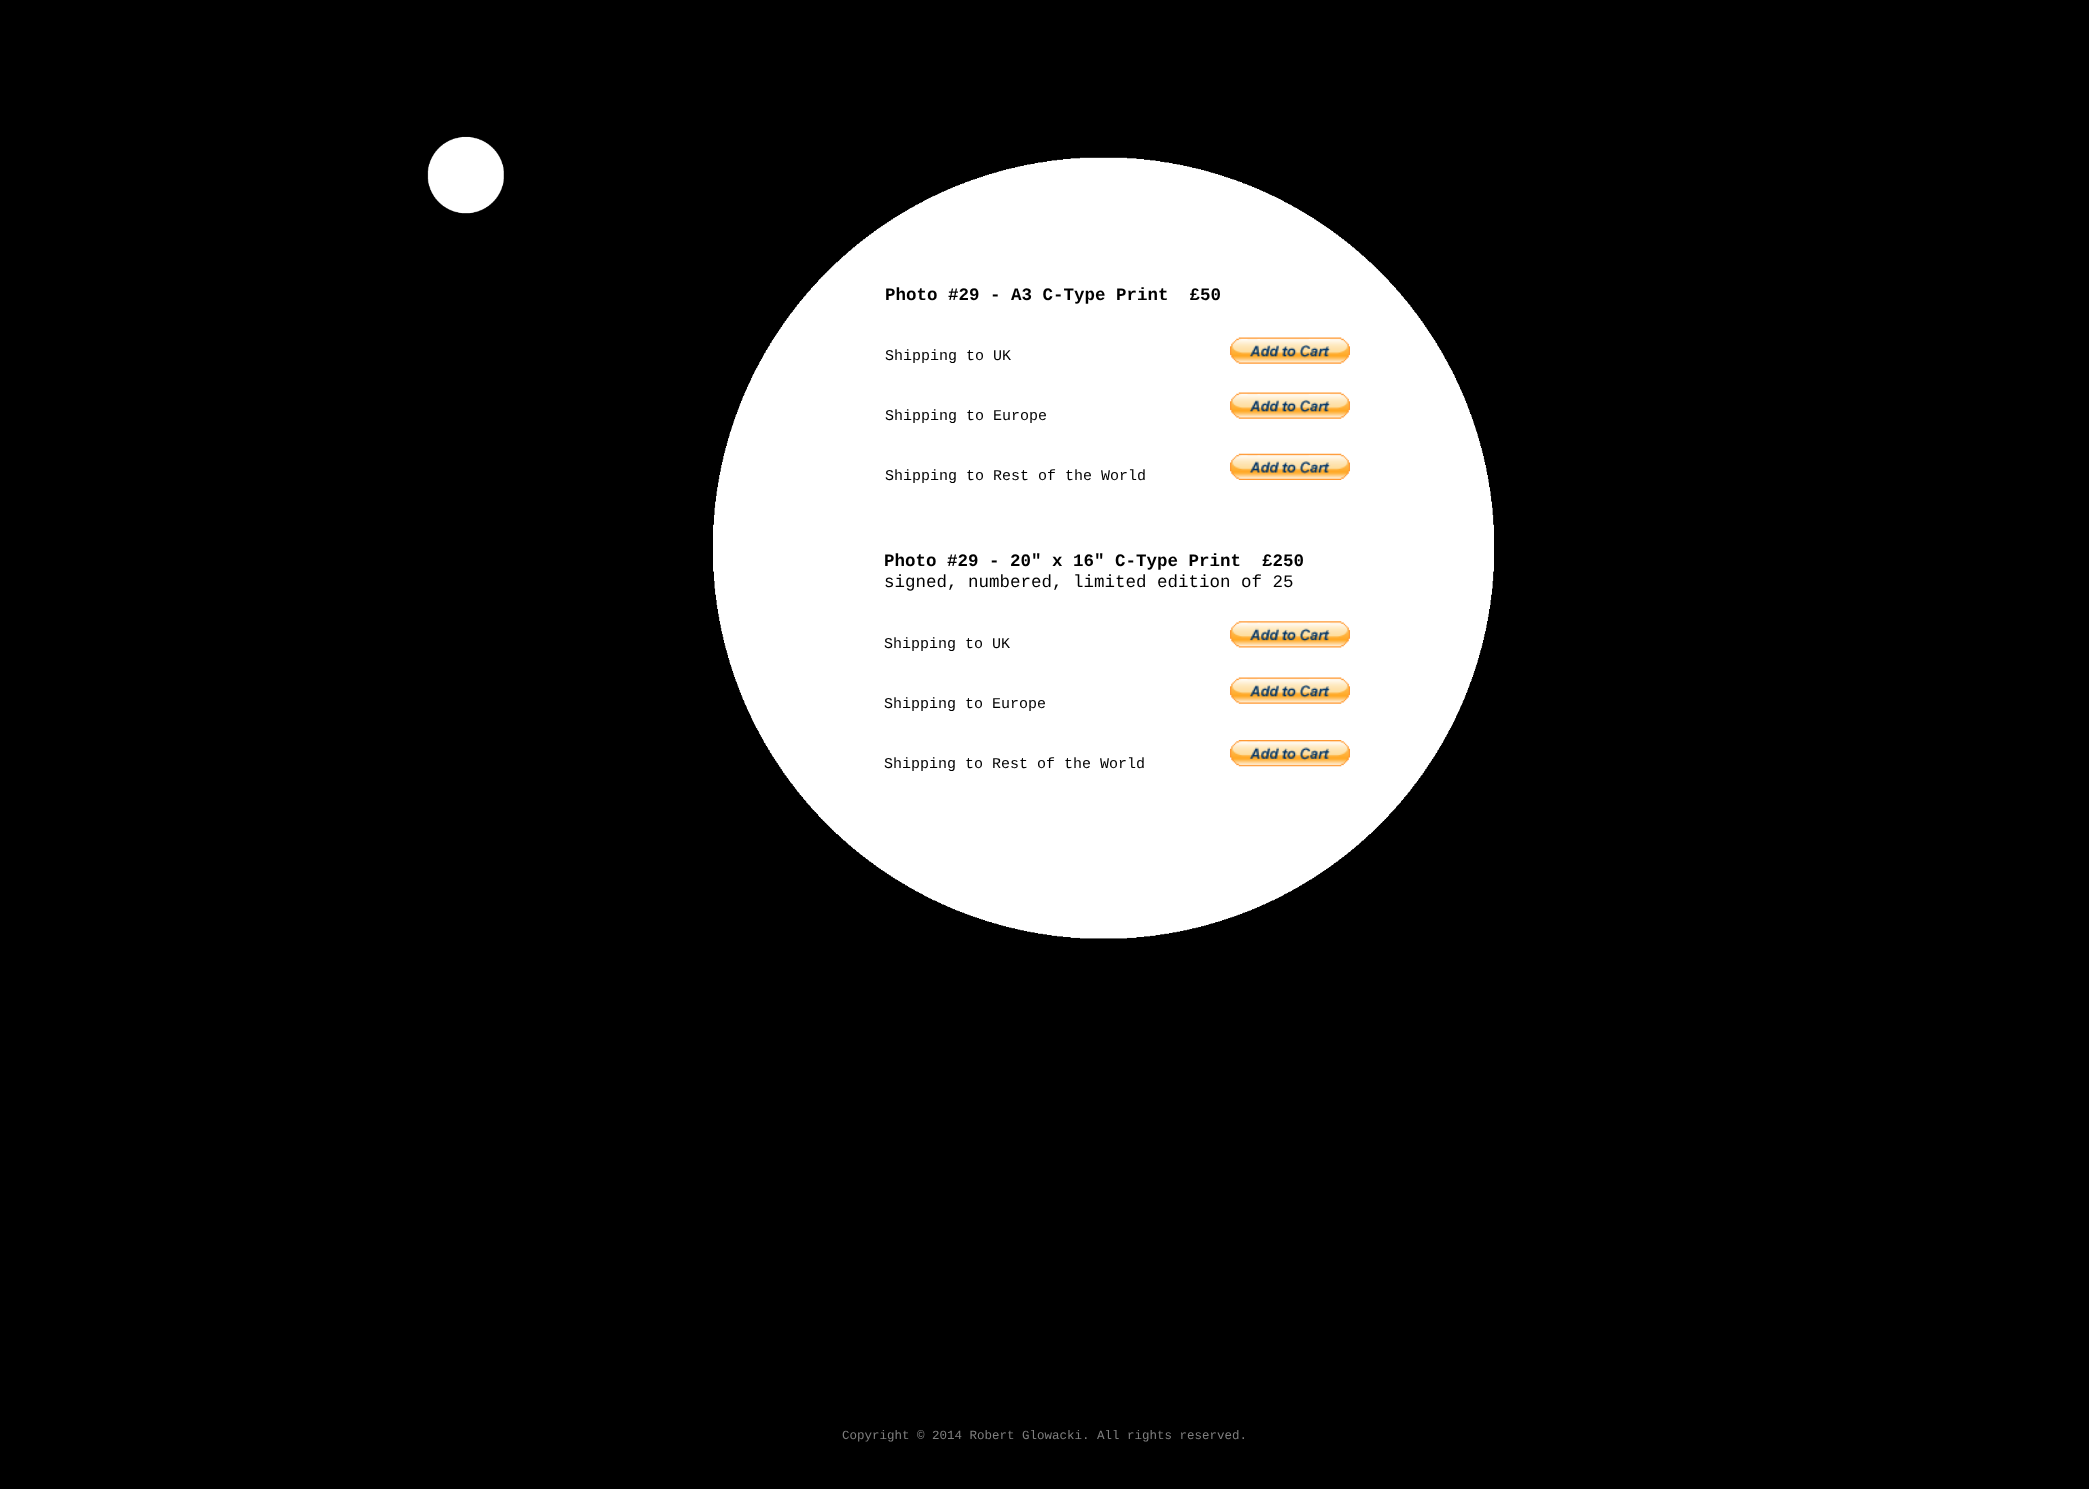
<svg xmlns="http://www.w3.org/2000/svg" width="2089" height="1489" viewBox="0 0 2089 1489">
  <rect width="100%" height="100%" fill="#000"/>
  <image x="427" y="136" width="77" height="78" href="img/1.png"/>
  <image x="713" y="157" width="781" height="782" href="img/2.png"/>
  <image x="1230" y="337" width="120" height="27" href="img/3.png"/>
  <image x="1230" y="392" width="120" height="27" href="img/3.png"/>
  <image x="1230" y="453" width="120" height="27" href="img/4.png"/>
  <image x="1230" y="621" width="120" height="27" href="img/5.png"/>
  <image x="1230" y="677" width="120" height="27" href="img/3.png"/>
  <image x="1230" y="740" width="120" height="27" href="img/6.png"/>
  <text x="885" y="300" font-family="Liberation Mono" font-size="17.5" font-weight="bold" fill="#000" xml:space="preserve">Photo #29 - A3 C-Type Print  £50</text>
  <g font-family="Liberation Mono" font-size="15" fill="#000">
    <text x="885" y="360">Shipping to UK</text>
    <text x="885" y="420">Shipping to Europe</text>
    <text x="885" y="480">Shipping to Rest of the World</text>
  </g>
  <text x="884" y="566" font-family="Liberation Mono" font-size="17.5" font-weight="bold" fill="#000" xml:space="preserve">Photo #29 - 20" x 16" C-Type Print  £250</text>
  <text x="884" y="587" font-family="Liberation Mono" font-size="17.5" fill="#000">signed, numbered, limited edition of 25</text>
  <g font-family="Liberation Mono" font-size="15" fill="#000">
    <text x="884" y="648">Shipping to UK</text>
    <text x="884" y="708">Shipping to Europe</text>
    <text x="884" y="768">Shipping to Rest of the World</text>
  </g>
  <text x="842" y="1439" font-family="Liberation Mono" font-size="12.5" fill="#7f7f7f">Copyright © 2014 Robert Glowacki. All rights reserved.</text>
</svg>
